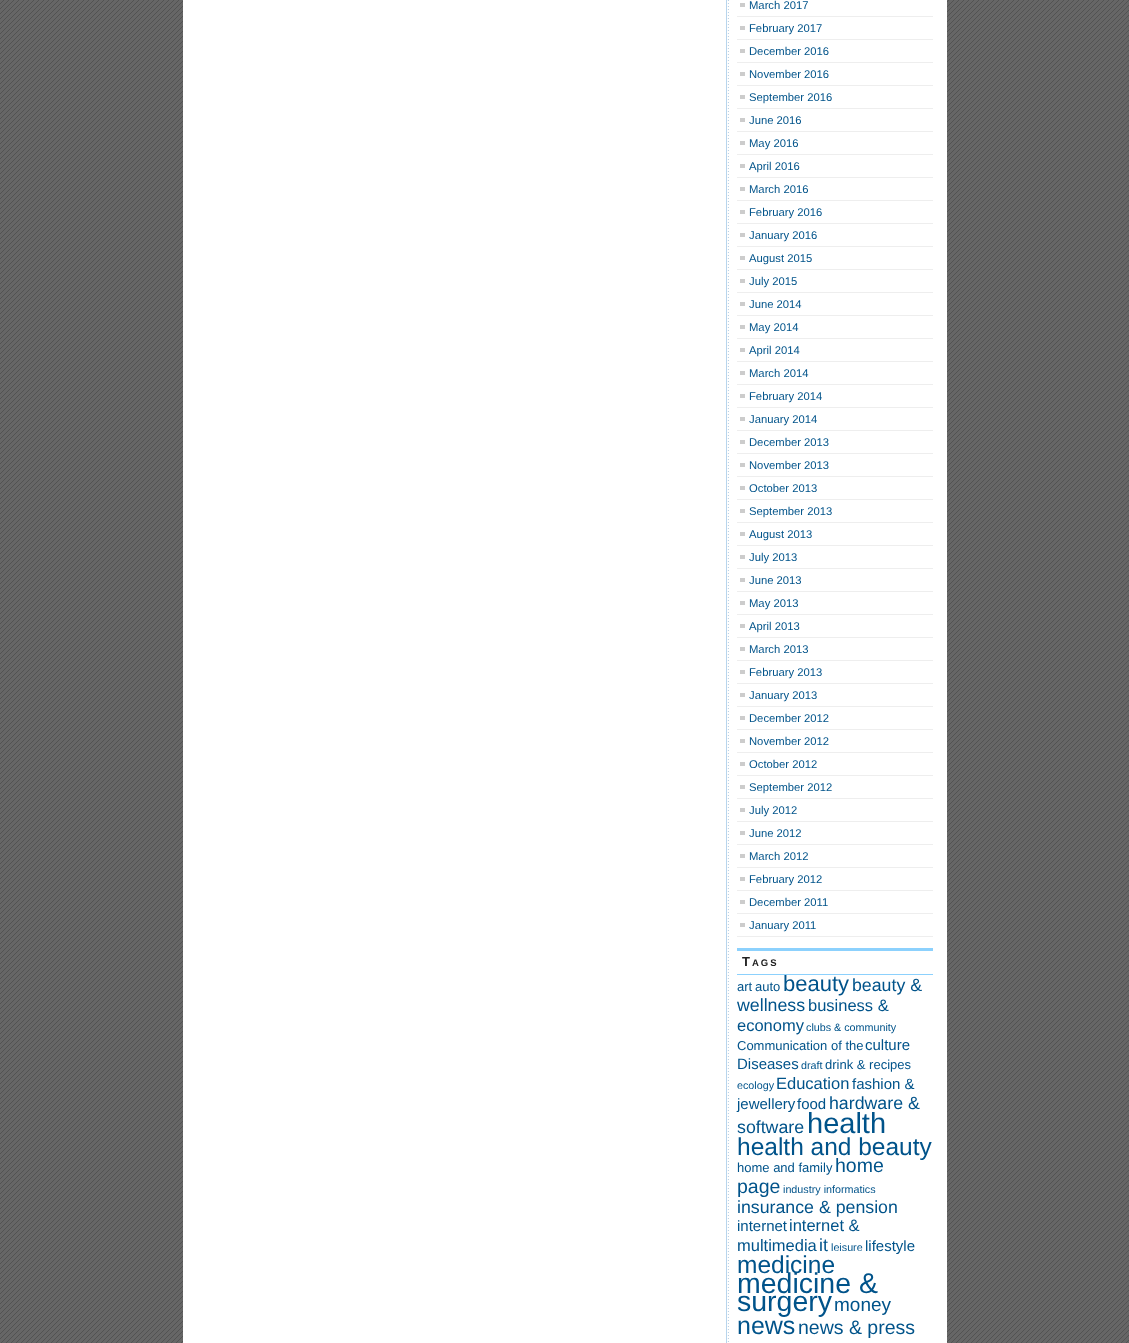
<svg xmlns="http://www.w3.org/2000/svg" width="1129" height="1343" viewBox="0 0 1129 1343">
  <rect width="100%" height="100%" fill="#fff"/>
  <image x="0" y="0" width="1129" height="1343" href="img/1.png"/>
  <path d="M183 0h764v1343H183z" fill="#fff"/>
  <image x="726" y="0" width="3" height="1343" href="img/2.png"/>
  <path d="M740 3h5v4H740z" fill="#ccc"/>
  <path d="M737 16h196v1H737z" fill="#eee"/>
  <path d="M740 26h5v4H740z" fill="#ccc"/>
  <path d="M737 39h196v1H737z" fill="#eee"/>
  <path d="M740 49h5v4H740z" fill="#ccc"/>
  <path d="M737 62h196v1H737z" fill="#eee"/>
  <path d="M740 72h5v4H740z" fill="#ccc"/>
  <path d="M737 85h196v1H737z" fill="#eee"/>
  <path d="M740 95h5v4H740z" fill="#ccc"/>
  <path d="M737 108h196v1H737z" fill="#eee"/>
  <path d="M740 118h5v4H740z" fill="#ccc"/>
  <path d="M737 131h196v1H737z" fill="#eee"/>
  <path d="M740 141h5v4H740z" fill="#ccc"/>
  <path d="M737 154h196v1H737z" fill="#eee"/>
  <path d="M740 164h5v4H740z" fill="#ccc"/>
  <path d="M737 177h196v1H737z" fill="#eee"/>
  <path d="M740 187h5v4H740z" fill="#ccc"/>
  <path d="M737 200h196v1H737z" fill="#eee"/>
  <path d="M740 210h5v4H740z" fill="#ccc"/>
  <path d="M737 223h196v1H737z" fill="#eee"/>
  <path d="M740 233h5v4H740z" fill="#ccc"/>
  <path d="M737 246h196v1H737z" fill="#eee"/>
  <path d="M740 256h5v4H740z" fill="#ccc"/>
  <path d="M737 269h196v1H737z" fill="#eee"/>
  <path d="M740 279h5v4H740z" fill="#ccc"/>
  <path d="M737 292h196v1H737z" fill="#eee"/>
  <path d="M740 302h5v4H740z" fill="#ccc"/>
  <path d="M737 315h196v1H737z" fill="#eee"/>
  <path d="M740 325h5v4H740z" fill="#ccc"/>
  <path d="M737 338h196v1H737z" fill="#eee"/>
  <path d="M740 348h5v4H740z" fill="#ccc"/>
  <path d="M737 361h196v1H737z" fill="#eee"/>
  <path d="M740 371h5v4H740z" fill="#ccc"/>
  <path d="M737 384h196v1H737z" fill="#eee"/>
  <path d="M740 394h5v4H740z" fill="#ccc"/>
  <path d="M737 407h196v1H737z" fill="#eee"/>
  <path d="M740 417h5v4H740z" fill="#ccc"/>
  <path d="M737 430h196v1H737z" fill="#eee"/>
  <path d="M740 440h5v4H740z" fill="#ccc"/>
  <path d="M737 453h196v1H737z" fill="#eee"/>
  <path d="M740 463h5v4H740z" fill="#ccc"/>
  <path d="M737 476h196v1H737z" fill="#eee"/>
  <path d="M740 486h5v4H740z" fill="#ccc"/>
  <path d="M737 499h196v1H737z" fill="#eee"/>
  <path d="M740 509h5v4H740z" fill="#ccc"/>
  <path d="M737 522h196v1H737z" fill="#eee"/>
  <path d="M740 532h5v4H740z" fill="#ccc"/>
  <path d="M737 545h196v1H737z" fill="#eee"/>
  <path d="M740 555h5v4H740z" fill="#ccc"/>
  <path d="M737 568h196v1H737z" fill="#eee"/>
  <path d="M740 578h5v4H740z" fill="#ccc"/>
  <path d="M737 591h196v1H737z" fill="#eee"/>
  <path d="M740 601h5v4H740z" fill="#ccc"/>
  <path d="M737 614h196v1H737z" fill="#eee"/>
  <path d="M740 624h5v4H740z" fill="#ccc"/>
  <path d="M737 637h196v1H737z" fill="#eee"/>
  <path d="M740 647h5v4H740z" fill="#ccc"/>
  <path d="M737 660h196v1H737z" fill="#eee"/>
  <path d="M740 670h5v4H740z" fill="#ccc"/>
  <path d="M737 683h196v1H737z" fill="#eee"/>
  <path d="M740 693h5v4H740z" fill="#ccc"/>
  <path d="M737 706h196v1H737z" fill="#eee"/>
  <path d="M740 716h5v4H740z" fill="#ccc"/>
  <path d="M737 729h196v1H737z" fill="#eee"/>
  <path d="M740 739h5v4H740z" fill="#ccc"/>
  <path d="M737 752h196v1H737z" fill="#eee"/>
  <path d="M740 762h5v4H740z" fill="#ccc"/>
  <path d="M737 775h196v1H737z" fill="#eee"/>
  <path d="M740 785h5v4H740z" fill="#ccc"/>
  <path d="M737 798h196v1H737z" fill="#eee"/>
  <path d="M740 808h5v4H740z" fill="#ccc"/>
  <path d="M737 821h196v1H737z" fill="#eee"/>
  <path d="M740 831h5v4H740z" fill="#ccc"/>
  <path d="M737 844h196v1H737z" fill="#eee"/>
  <path d="M740 854h5v4H740z" fill="#ccc"/>
  <path d="M737 867h196v1H737z" fill="#eee"/>
  <path d="M740 877h5v4H740z" fill="#ccc"/>
  <path d="M737 890h196v1H737z" fill="#eee"/>
  <path d="M740 900h5v4H740z" fill="#ccc"/>
  <path d="M737 913h196v1H737z" fill="#eee"/>
  <path d="M740 923h5v4H740z" fill="#ccc"/>
  <path d="M737 936h196v1H737z" fill="#eee"/>
  <path d="M737 948h196v3H737z" fill="#8cd1fd"/>
  <path d="M737 974h196v1H737z" fill="#8cd1fd"/>
  <g font-family="Liberation Sans" font-size="11.25" fill="#00538a">
    <text x="749" y="9">March 2017</text>
    <text x="749" y="32">February 2017</text>
    <text x="749" y="55">December 2016</text>
    <text x="749" y="78">November 2016</text>
    <text x="749" y="101">September 2016</text>
    <text x="749" y="124">June 2016</text>
    <text x="749" y="147">May 2016</text>
    <text x="749" y="170">April 2016</text>
    <text x="749" y="193">March 2016</text>
    <text x="749" y="216">February 2016</text>
    <text x="749" y="239">January 2016</text>
    <text x="749" y="262">August 2015</text>
    <text x="749" y="285">July 2015</text>
    <text x="749" y="308">June 2014</text>
    <text x="749" y="331">May 2014</text>
    <text x="749" y="354">April 2014</text>
    <text x="749" y="377">March 2014</text>
    <text x="749" y="400">February 2014</text>
    <text x="749" y="423">January 2014</text>
    <text x="749" y="446">December 2013</text>
    <text x="749" y="469">November 2013</text>
    <text x="749" y="492">October 2013</text>
    <text x="749" y="515">September 2013</text>
    <text x="749" y="538">August 2013</text>
    <text x="749" y="561">July 2013</text>
    <text x="749" y="584">June 2013</text>
    <text x="749" y="607">May 2013</text>
    <text x="749" y="630">April 2013</text>
    <text x="749" y="653">March 2013</text>
    <text x="749" y="676">February 2013</text>
    <text x="749" y="699">January 2013</text>
    <text x="749" y="722">December 2012</text>
    <text x="749" y="745">November 2012</text>
    <text x="749" y="768">October 2012</text>
    <text x="749" y="791">September 2012</text>
    <text x="749" y="814">July 2012</text>
    <text x="749" y="837">June 2012</text>
    <text x="749" y="860">March 2012</text>
    <text x="749" y="883">February 2012</text>
    <text x="749" y="906">December 2011</text>
    <text x="749" y="929">January 2011</text>
  </g>
  <text x="742" y="966" font-family="Liberation Sans" font-size="13" font-weight="bold" letter-spacing="2" fill="#222">T</text>
  <text x="752" y="966" font-family="Liberation Sans" font-size="9.5" font-weight="bold" letter-spacing="2" fill="#222">AGS</text>
  <g font-family="Liberation Sans" font-size="13" fill="#00538a">
    <text x="737" y="991">art</text>
    <text x="755" y="991">auto</text>
  </g>
  <text x="783" y="991" font-family="Liberation Sans" font-size="22" fill="#00538a">beauty</text>
  <g font-family="Liberation Sans" font-size="17.75" fill="#00538a">
    <text x="852" y="991">beauty &amp;</text>
    <text x="737" y="1011">wellness</text>
  </g>
  <g font-family="Liberation Sans" font-size="16.5" fill="#00538a">
    <text x="808" y="1011">business &amp;</text>
    <text x="737" y="1031">economy</text>
  </g>
  <text x="806" y="1031" font-family="Liberation Sans" font-size="10.75" fill="#00538a">clubs &amp; community</text>
  <text x="737" y="1050" font-family="Liberation Sans" font-size="13" fill="#00538a">Communication of the</text>
  <g font-family="Liberation Sans" font-size="15" fill="#00538a">
    <text x="865" y="1050">culture</text>
    <text x="737" y="1069">Diseases</text>
  </g>
  <text x="801" y="1069" font-family="Liberation Sans" font-size="10.75" fill="#00538a">draft</text>
  <text x="825" y="1069" font-family="Liberation Sans" font-size="13" fill="#00538a">drink &amp; recipes</text>
  <text x="737" y="1089" font-family="Liberation Sans" font-size="10.75" fill="#00538a">ecology</text>
  <text x="776" y="1089" font-family="Liberation Sans" font-size="16.5" fill="#00538a">Education</text>
  <g font-family="Liberation Sans" font-size="15" fill="#00538a">
    <text x="852" y="1089">fashion &amp;</text>
    <text x="737" y="1109">jewellery</text>
    <text x="797" y="1109">food</text>
  </g>
  <g font-family="Liberation Sans" font-size="17.75" fill="#00538a">
    <text x="829" y="1109">hardware &amp;</text>
    <text x="737" y="1133">software</text>
  </g>
  <text x="807" y="1133" font-family="Liberation Sans" font-size="29" fill="#00538a">health</text>
  <text x="737" y="1155" font-family="Liberation Sans" font-size="24.5" fill="#00538a">health and beauty</text>
  <text x="737" y="1172" font-family="Liberation Sans" font-size="13" fill="#00538a">home and family</text>
  <g font-family="Liberation Sans" font-size="19.5" fill="#00538a">
    <text x="835" y="1172">home</text>
    <text x="737" y="1193">page</text>
  </g>
  <text x="783" y="1193" font-family="Liberation Sans" font-size="10.75" fill="#00538a">industry informatics</text>
  <text x="737" y="1213" font-family="Liberation Sans" font-size="17.75" fill="#00538a">insurance &amp; pension</text>
  <text x="737" y="1231" font-family="Liberation Sans" font-size="15" fill="#00538a">internet</text>
  <g font-family="Liberation Sans" font-size="16.5" fill="#00538a">
    <text x="789" y="1231">internet &amp;</text>
    <text x="737" y="1251">multimedia</text>
  </g>
  <text x="819" y="1251" font-family="Liberation Sans" font-size="17.75" fill="#00538a">it</text>
  <text x="831" y="1251" font-family="Liberation Sans" font-size="10.75" fill="#00538a">leisure</text>
  <text x="865" y="1251" font-family="Liberation Sans" font-size="15" fill="#00538a">lifestyle</text>
  <text x="737" y="1273" font-family="Liberation Sans" font-size="24.5" fill="#00538a">medicine</text>
  <g font-family="Liberation Sans" font-size="28.5" fill="#00538a">
    <text x="737" y="1293">medicine &amp;</text>
    <text x="737" y="1311">surgery</text>
  </g>
  <text x="834" y="1311" font-family="Liberation Sans" font-size="19" fill="#00538a">money</text>
  <text x="737" y="1334" font-family="Liberation Sans" font-size="25" fill="#00538a">news</text>
  <text x="798" y="1334" font-family="Liberation Sans" font-size="19.5" fill="#00538a">news &amp; press</text>
</svg>
